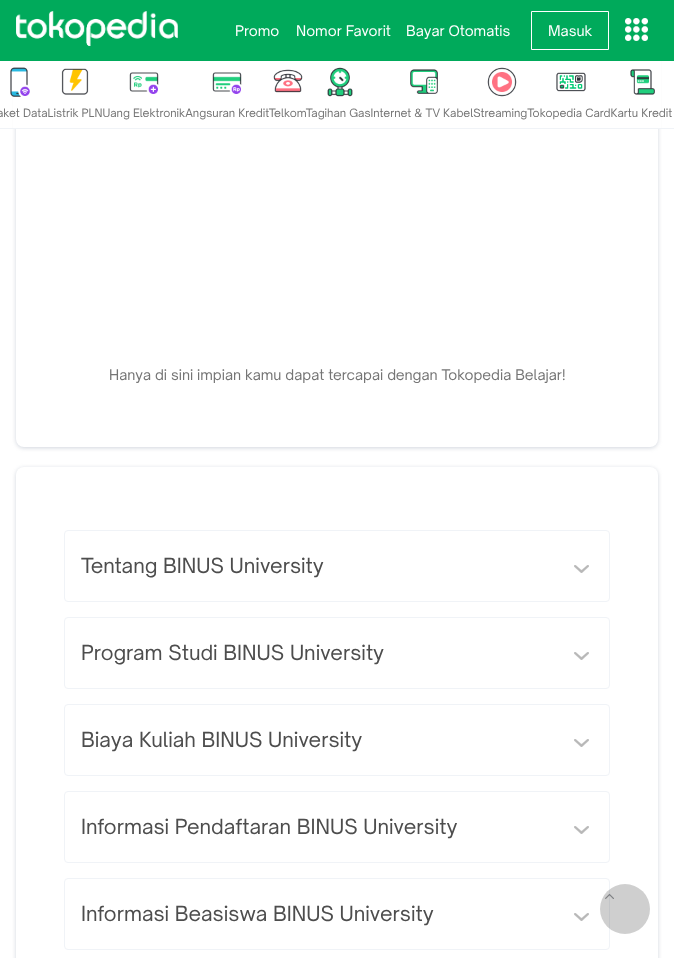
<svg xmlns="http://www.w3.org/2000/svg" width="674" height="958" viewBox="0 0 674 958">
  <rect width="100%" height="100%" fill="#fff"/>
  <rect x="16" y="-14" width="642" height="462" rx="8" fill="#8d96aa66" filter="blur(2px)"/>
  <rect x="16" y="-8" width="642" height="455" rx="8" fill="#fff"/>
  <path d="M0 0h674v61H0z" fill="#00aa5b"/>
  <image x="16" y="11" width="162" height="35" href="img/1.png"/>
  <path d="M531.5 11.5h77v38H531.5z" fill="none" stroke="#fff"/>
  <image x="625" y="18" width="23" height="23" href="img/2.png"/>
  <path d="M13 61h648v67H13z" fill="#fff"/>
  <path d="M0 128h674v1H0z" fill="#f0f3f7"/>
  <image x="61" y="68" width="28" height="27" href="img/3.png"/>
  <image x="129" y="72" width="30" height="22" href="img/4.png"/>
  <image x="212" y="72" width="30" height="22" href="img/5.png"/>
  <image x="273" y="69" width="30" height="24" href="img/6.png"/>
  <image x="327" y="67" width="26" height="30" href="img/7.png"/>
  <image x="410" y="69" width="28" height="25" href="img/8.png"/>
  <image x="487" y="67" width="30" height="30" href="img/9.png"/>
  <image x="556" y="72" width="30" height="20" href="img/10.png"/>
  <image x="630" y="69" width="25" height="26" href="img/11.png"/>
  <image x="10" y="67" width="20" height="30" href="img/12.png"/>
  <rect x="16" y="468" width="642" height="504" rx="8" fill="#8d96aa66" filter="blur(2px)"/>
  <rect x="16" y="467" width="642" height="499" rx="8" fill="#fff"/>
  <rect x="64.5" y="530.5" width="545" height="71" rx="3.5" fill="none" stroke="#f0f3f7"/>
  <image x="574" y="565" width="15" height="8" href="img/13.png"/>
  <rect x="64.5" y="617.5" width="545" height="71" rx="3.5" fill="none" stroke="#f0f3f7"/>
  <image x="574" y="652" width="15" height="8" href="img/13.png"/>
  <rect x="64.5" y="704.5" width="545" height="71" rx="3.5" fill="none" stroke="#f0f3f7"/>
  <image x="574" y="739" width="15" height="8" href="img/13.png"/>
  <rect x="64.5" y="791.5" width="545" height="71" rx="3.5" fill="none" stroke="#f0f3f7"/>
  <image x="574" y="826" width="15" height="8" href="img/13.png"/>
  <rect x="64.5" y="878.5" width="545" height="71" rx="3.5" fill="none" stroke="#f0f3f7"/>
  <image x="574" y="913" width="15" height="8" href="img/13.png"/>
  <circle cx="625" cy="909" r="25" fill="#00000030"/>
  <image x="605" y="894" width="9" height="5" href="img/14.png"/>
  <g font-family="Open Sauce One" font-size="14" fill="#fff">
    <text x="235" y="36">Promo</text>
    <text x="296" y="36">Nomor Favorit</text>
    <text x="406" y="36">Bayar Otomatis</text>
    <text x="548" y="36">Masuk</text>
  </g>
  <text x="-3" y="117" font-family="Open Sauce One" font-size="11" fill="#757575">aket DataListrik PLNUang ElektronikAngsuran KreditTelkomTagihan GasInternet &amp; TV KabelStreamingTokopedia CardKartu Kredit</text>
  <text x="109" y="380" font-family="Open Sauce One" font-size="14" fill="#757575">Hanya di sini impian kamu dapat tercapai dengan Tokopedia Belajar!</text>
  <g font-family="Open Sauce One" font-size="20" fill="#4d4d4d">
    <text x="81" y="573">Tentang BINUS University</text>
    <text x="81" y="660">Program Studi BINUS University</text>
    <text x="81" y="747">Biaya Kuliah BINUS University</text>
    <text x="81" y="834">Informasi Pendaftaran BINUS University</text>
    <text x="81" y="921">Informasi Beasiswa BINUS University</text>
  </g>
</svg>
